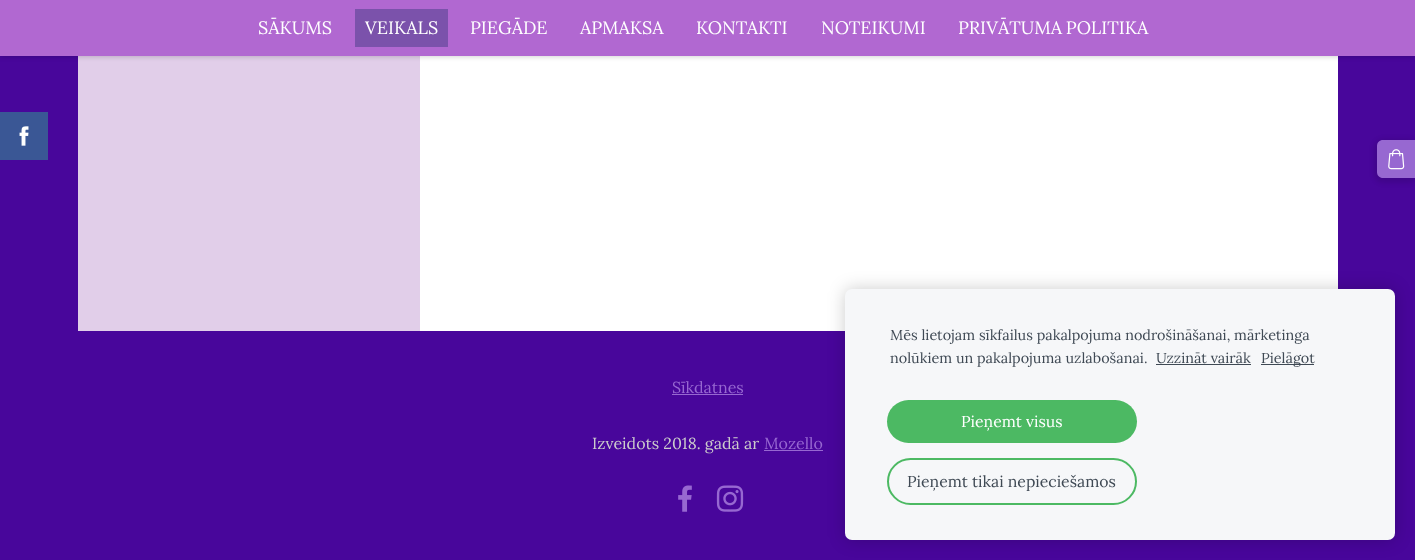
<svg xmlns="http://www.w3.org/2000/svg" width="1415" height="560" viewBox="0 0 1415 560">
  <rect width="100%" height="100%" fill="#48069b"/>
  <path d="M420 56h918v275H420z" fill="#fff"/>
  <path d="M78 56h342v275H78z" fill="#e1cee9"/>
  <path d="M0 1h1415v56H0z" fill="#0000002b" filter="blur(2.5px)"/>
  <path d="M0 0h1415v56H0z" fill="#b168d1"/>
  <path d="M355 9h93v38H355z" fill="#7b52ab"/>
  <path d="M0 112h48v48H0z" fill="#3a5795"/>
  <image x="19" y="126" width="10" height="20" href="img/1.png"/>
  <rect x="1374" y="139" width="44" height="44" rx="9" fill="#0000001a" filter="blur(2.5px)"/>
  <path d="M1383 140H1415V178H1383C1379.5 178 1377 175.5 1377 172V146C1377 142.5 1379.5 140 1383 140Z" fill="#9768d1"/>
  <image x="1388" y="149" width="17" height="21" href="img/2.png"/>
  <path d="M672 394h71v1H672z" fill="#9768d1"/>
  <path d="M764 450h59v1H764z" fill="#9768d1"/>
  <image x="678" y="485" width="14" height="27" href="img/3.png"/>
  <image x="716" y="485" width="28" height="27" href="img/4.png"/>
  <rect x="845" y="289" width="550" height="251" rx="7" fill="#00000033" filter="blur(8.5px)"/>
  <rect x="845" y="289" width="550" height="251" rx="7" fill="#f6f7f9"/>
  <path d="M1156 364h95v1H1156z" fill="#3f4954"/>
  <path d="M1261 364h53v1H1261z" fill="#3f4954"/>
  <rect x="887" y="400" width="250" height="43" rx="21.5" fill="#4cb963"/>
  <rect x="888" y="459" width="248" height="45" rx="22.5" fill="none" stroke="#4cb963" stroke-width="2"/>
  <g font-family="Lora" font-size="18" fill="#fff">
    <text x="258" y="34">SĀKUMS</text>
    <text x="365" y="34">VEIKALS</text>
    <text x="470" y="34">PIEGĀDE</text>
    <text x="580" y="34">APMAKSA</text>
    <text x="696" y="34">KONTAKTI</text>
    <text x="821" y="34">NOTEIKUMI</text>
    <text x="958" y="34" word-spacing="-1">PRIVĀTUMA POLITIKA</text>
  </g>
  <text x="672" y="393" font-family="Lora" font-size="16" fill="#9768d1">Sīkdatnes</text>
  <text x="592" y="449" font-family="Lora" font-size="16" fill="#ccc">Izveidots 2018. gadā ar</text>
  <text x="764" y="449" font-family="Lora" font-size="16" fill="#9768d1">Mozello</text>
  <g font-family="Lora" font-size="14.4" fill="#3f4954">
    <text x="890" y="340">Mēs lietojam sīkfailus pakalpojuma nodrošināšanai, mārketinga</text>
    <text x="890" y="363">nolūkiem un pakalpojuma uzlabošanai.</text>
    <text x="1156" y="363">Uzzināt vairāk</text>
    <text x="1261" y="363">Pielāgot</text>
  </g>
  <text x="961" y="427" font-family="Lora" font-size="15.8" fill="#fff">Pieņemt visus</text>
  <text x="907" y="487" font-family="Lora" font-size="15.8" fill="#3f4954">Pieņemt tikai nepieciešamos</text>
</svg>
